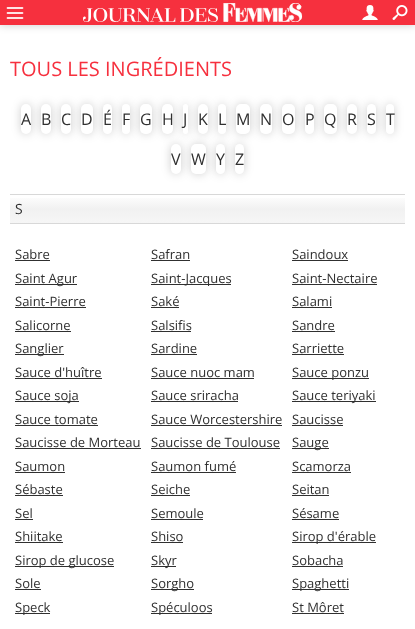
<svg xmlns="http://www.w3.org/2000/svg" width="415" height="629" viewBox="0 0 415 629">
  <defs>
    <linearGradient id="g1" gradientUnits="userSpaceOnUse" x1="208" y1="195" x2="208" y2="223"><stop offset="0" stop-color="#fff"/><stop offset="0.5" stop-color="#f1f1f1"/><stop offset="1" stop-color="#f6f6f6"/></linearGradient>
  </defs>
  <rect width="100%" height="100%" fill="#fff"/>
  <path d="M0 0h415v25H0z" fill="#00000033" filter="blur(4px)"/>
  <path d="M0 0h415v25H0z" fill="#f6303e"/>
  <image x="6" y="7" width="18" height="12" href="img/1.png"/>
  <image x="83" y="3" width="220" height="19" href="img/2.png"/>
  <image x="362" y="5" width="16" height="15" href="img/3.png"/>
  <image x="392" y="5" width="16" height="15" href="img/4.png"/>
  <rect x="21" y="104" width="10" height="30" rx="5" fill="#00000033" filter="blur(5px)"/>
  <rect x="21" y="104" width="10" height="30" rx="5" fill="#fff"/>
  <rect x="41" y="104" width="10" height="30" rx="5" fill="#00000033" filter="blur(5px)"/>
  <rect x="41" y="104" width="10" height="30" rx="5" fill="#fff"/>
  <rect x="61" y="104" width="10" height="30" rx="5" fill="#00000033" filter="blur(5px)"/>
  <rect x="61" y="104" width="10" height="30" rx="5" fill="#fff"/>
  <rect x="81" y="104" width="12" height="30" rx="5" fill="#00000033" filter="blur(5px)"/>
  <rect x="81" y="104" width="12" height="30" rx="5" fill="#fff"/>
  <rect x="103" y="104" width="9" height="30" rx="4.5" fill="#00000033" filter="blur(5px)"/>
  <rect x="103" y="104" width="9" height="30" rx="4.5" fill="#fff"/>
  <rect x="122" y="104" width="8" height="30" rx="4" fill="#00000033" filter="blur(5px)"/>
  <rect x="122" y="104" width="8" height="30" rx="4" fill="#fff"/>
  <rect x="140" y="104" width="12" height="30" rx="5" fill="#00000033" filter="blur(5px)"/>
  <rect x="140" y="104" width="12" height="30" rx="5" fill="#fff"/>
  <rect x="162" y="104" width="11" height="30" rx="5" fill="#00000033" filter="blur(5px)"/>
  <rect x="162" y="104" width="11" height="30" rx="5" fill="#fff"/>
  <rect x="183" y="104" width="5" height="30" rx="2.5" fill="#00000033" filter="blur(5px)"/>
  <rect x="183" y="104" width="5" height="30" rx="2.5" fill="#fff"/>
  <rect x="198" y="104" width="10" height="30" rx="5" fill="#00000033" filter="blur(5px)"/>
  <rect x="198" y="104" width="10" height="30" rx="5" fill="#fff"/>
  <rect x="218" y="104" width="8" height="30" rx="4" fill="#00000033" filter="blur(5px)"/>
  <rect x="218" y="104" width="8" height="30" rx="4" fill="#fff"/>
  <rect x="236" y="104" width="14" height="30" rx="5" fill="#00000033" filter="blur(5px)"/>
  <rect x="236" y="104" width="14" height="30" rx="5" fill="#fff"/>
  <rect x="260" y="104" width="12" height="30" rx="5" fill="#00000033" filter="blur(5px)"/>
  <rect x="260" y="104" width="12" height="30" rx="5" fill="#fff"/>
  <rect x="282" y="104" width="13" height="30" rx="5" fill="#00000033" filter="blur(5px)"/>
  <rect x="282" y="104" width="13" height="30" rx="5" fill="#fff"/>
  <rect x="305" y="104" width="9" height="30" rx="4.5" fill="#00000033" filter="blur(5px)"/>
  <rect x="305" y="104" width="9" height="30" rx="4.5" fill="#fff"/>
  <rect x="324" y="104" width="13" height="30" rx="5" fill="#00000033" filter="blur(5px)"/>
  <rect x="324" y="104" width="13" height="30" rx="5" fill="#fff"/>
  <rect x="347" y="104" width="10" height="30" rx="5" fill="#00000033" filter="blur(5px)"/>
  <rect x="347" y="104" width="10" height="30" rx="5" fill="#fff"/>
  <rect x="367" y="104" width="9" height="30" rx="4.5" fill="#00000033" filter="blur(5px)"/>
  <rect x="367" y="104" width="9" height="30" rx="4.5" fill="#fff"/>
  <rect x="386" y="104" width="8" height="30" rx="4" fill="#00000033" filter="blur(5px)"/>
  <rect x="386" y="104" width="8" height="30" rx="4" fill="#fff"/>
  <rect x="171" y="144" width="10" height="30" rx="5" fill="#00000033" filter="blur(5px)"/>
  <rect x="171" y="144" width="10" height="30" rx="5" fill="#fff"/>
  <rect x="191" y="144" width="15" height="30" rx="5" fill="#00000033" filter="blur(5px)"/>
  <rect x="191" y="144" width="15" height="30" rx="5" fill="#fff"/>
  <rect x="216" y="144" width="9" height="30" rx="4.5" fill="#00000033" filter="blur(5px)"/>
  <rect x="216" y="144" width="9" height="30" rx="4.5" fill="#fff"/>
  <rect x="235" y="144" width="9" height="30" rx="4.5" fill="#00000033" filter="blur(5px)"/>
  <rect x="235" y="144" width="9" height="30" rx="4.5" fill="#fff"/>
  <path d="M10 198h395v25H10z" fill="url(#g1)"/>
  <path d="M10 194h395v1H10z" fill="#d8d8d8"/>
  <path d="M10 223h395v1H10z" fill="#d8d8d8"/>
  <path d="M15 260h35v1H15z" fill="#303030"/>
  <path d="M151 260h39v1H151z" fill="#303030"/>
  <path d="M292 260h56v1H292z" fill="#303030"/>
  <path d="M15 284h62v1H15z" fill="#303030"/>
  <path d="M151 284h80v1H151z" fill="#303030"/>
  <path d="M292 284h85v1H292z" fill="#303030"/>
  <path d="M15 307h71v1H15z" fill="#303030"/>
  <path d="M151 307h28v1H151z" fill="#303030"/>
  <path d="M292 307h40v1H292z" fill="#303030"/>
  <path d="M15 331h56v1H15z" fill="#303030"/>
  <path d="M151 331h40v1H151z" fill="#303030"/>
  <path d="M292 331h43v1H292z" fill="#303030"/>
  <path d="M15 354h49v1H15z" fill="#303030"/>
  <path d="M151 354h46v1H151z" fill="#303030"/>
  <path d="M292 354h52v1H292z" fill="#303030"/>
  <path d="M15 378h87v1H15z" fill="#303030"/>
  <path d="M151 378h103v1H151z" fill="#303030"/>
  <path d="M292 378h77v1H292z" fill="#303030"/>
  <path d="M15 401h64v1H15z" fill="#303030"/>
  <path d="M151 401h87v1H151z" fill="#303030"/>
  <path d="M292 401h84v1H292z" fill="#303030"/>
  <path d="M15 425h83v1H15z" fill="#303030"/>
  <path d="M151 425h131v1H151z" fill="#303030"/>
  <path d="M292 425h51v1H292z" fill="#303030"/>
  <path d="M15 448h126v1H15z" fill="#303030"/>
  <path d="M151 448h129v1H151z" fill="#303030"/>
  <path d="M292 448h37v1H292z" fill="#303030"/>
  <path d="M15 472h50v1H15z" fill="#303030"/>
  <path d="M151 472h85v1H151z" fill="#303030"/>
  <path d="M292 472h59v1H292z" fill="#303030"/>
  <path d="M15 495h48v1H15z" fill="#303030"/>
  <path d="M151 495h39v1H151z" fill="#303030"/>
  <path d="M292 495h37v1H292z" fill="#303030"/>
  <path d="M15 519h18v1H15z" fill="#303030"/>
  <path d="M151 519h52v1H151z" fill="#303030"/>
  <path d="M292 519h47v1H292z" fill="#303030"/>
  <path d="M15 542h48v1H15z" fill="#303030"/>
  <path d="M151 542h32v1H151z" fill="#303030"/>
  <path d="M292 542h84v1H292z" fill="#303030"/>
  <path d="M15 566h99v1H15z" fill="#303030"/>
  <path d="M151 566h25v1H151z" fill="#303030"/>
  <path d="M292 566h51v1H292z" fill="#303030"/>
  <path d="M15 589h26v1H15z" fill="#303030"/>
  <path d="M151 589h43v1H151z" fill="#303030"/>
  <path d="M292 589h57v1H292z" fill="#303030"/>
  <path d="M15 613h35v1H15z" fill="#303030"/>
  <path d="M151 613h61v1H151z" fill="#303030"/>
  <path d="M292 613h52v1H292z" fill="#303030"/>
  <text x="10" y="76" font-family="Open Sans" font-size="20" fill="#f6303e">TOUS LES INGRÉDIENTS</text>
  <g font-family="Open Sans" font-size="16" fill="#303030">
    <text x="21" y="125">A</text>
    <text x="41" y="125">B</text>
    <text x="61" y="125">C</text>
    <text x="81" y="125">D</text>
    <text x="103" y="125">É</text>
    <text x="122" y="125">F</text>
    <text x="140" y="125">G</text>
    <text x="162" y="125">H</text>
    <text x="183" y="125">J</text>
    <text x="198" y="125">K</text>
    <text x="218" y="125">L</text>
    <text x="236" y="125">M</text>
    <text x="260" y="125">N</text>
    <text x="282" y="125">O</text>
    <text x="305" y="125">P</text>
    <text x="324" y="125">Q</text>
    <text x="347" y="125">R</text>
    <text x="367" y="125">S</text>
    <text x="386" y="125">T</text>
    <text x="171" y="165">V</text>
    <text x="191" y="165">W</text>
    <text x="216" y="165">Y</text>
    <text x="235" y="165">Z</text>
  </g>
  <text x="15" y="214" font-family="Open Sans" font-size="14" fill="#303030">S</text>
  <g font-family="Open Sans" font-size="13" fill="#303030">
    <text x="15" y="259">Sabre</text>
    <text x="151" y="259">Safran</text>
    <text x="292" y="259">Saindoux</text>
    <text x="15" y="283">Saint Agur</text>
    <text x="151" y="283">Saint-Jacques</text>
    <text x="292" y="283">Saint-Nectaire</text>
    <text x="15" y="306">Saint-Pierre</text>
    <text x="151" y="306">Saké</text>
    <text x="292" y="306">Salami</text>
    <text x="15" y="330">Salicorne</text>
    <text x="151" y="330">Salsifis</text>
    <text x="292" y="330">Sandre</text>
    <text x="15" y="353">Sanglier</text>
    <text x="151" y="353">Sardine</text>
    <text x="292" y="353">Sarriette</text>
    <text x="15" y="377">Sauce d'huître</text>
    <text x="151" y="377">Sauce nuoc mam</text>
    <text x="292" y="377">Sauce ponzu</text>
    <text x="15" y="400">Sauce soja</text>
    <text x="151" y="400">Sauce sriracha</text>
    <text x="292" y="400">Sauce teriyaki</text>
    <text x="15" y="424">Sauce tomate</text>
    <text x="151" y="424">Sauce Worcestershire</text>
    <text x="292" y="424">Saucisse</text>
    <text x="15" y="447">Saucisse de Morteau</text>
    <text x="151" y="447">Saucisse de Toulouse</text>
    <text x="292" y="447">Sauge</text>
    <text x="15" y="471">Saumon</text>
    <text x="151" y="471">Saumon fumé</text>
    <text x="292" y="471">Scamorza</text>
    <text x="15" y="494">Sébaste</text>
    <text x="151" y="494">Seiche</text>
    <text x="292" y="494">Seitan</text>
    <text x="15" y="518">Sel</text>
    <text x="151" y="518">Semoule</text>
    <text x="292" y="518">Sésame</text>
    <text x="15" y="541">Shiitake</text>
    <text x="151" y="541">Shiso</text>
    <text x="292" y="541">Sirop d'érable</text>
    <text x="15" y="565">Sirop de glucose</text>
    <text x="151" y="565">Skyr</text>
    <text x="292" y="565">Sobacha</text>
    <text x="15" y="588">Sole</text>
    <text x="151" y="588">Sorgho</text>
    <text x="292" y="588">Spaghetti</text>
    <text x="15" y="612">Speck</text>
    <text x="151" y="612">Spéculoos</text>
    <text x="292" y="612">St Môret</text>
  </g>
</svg>
